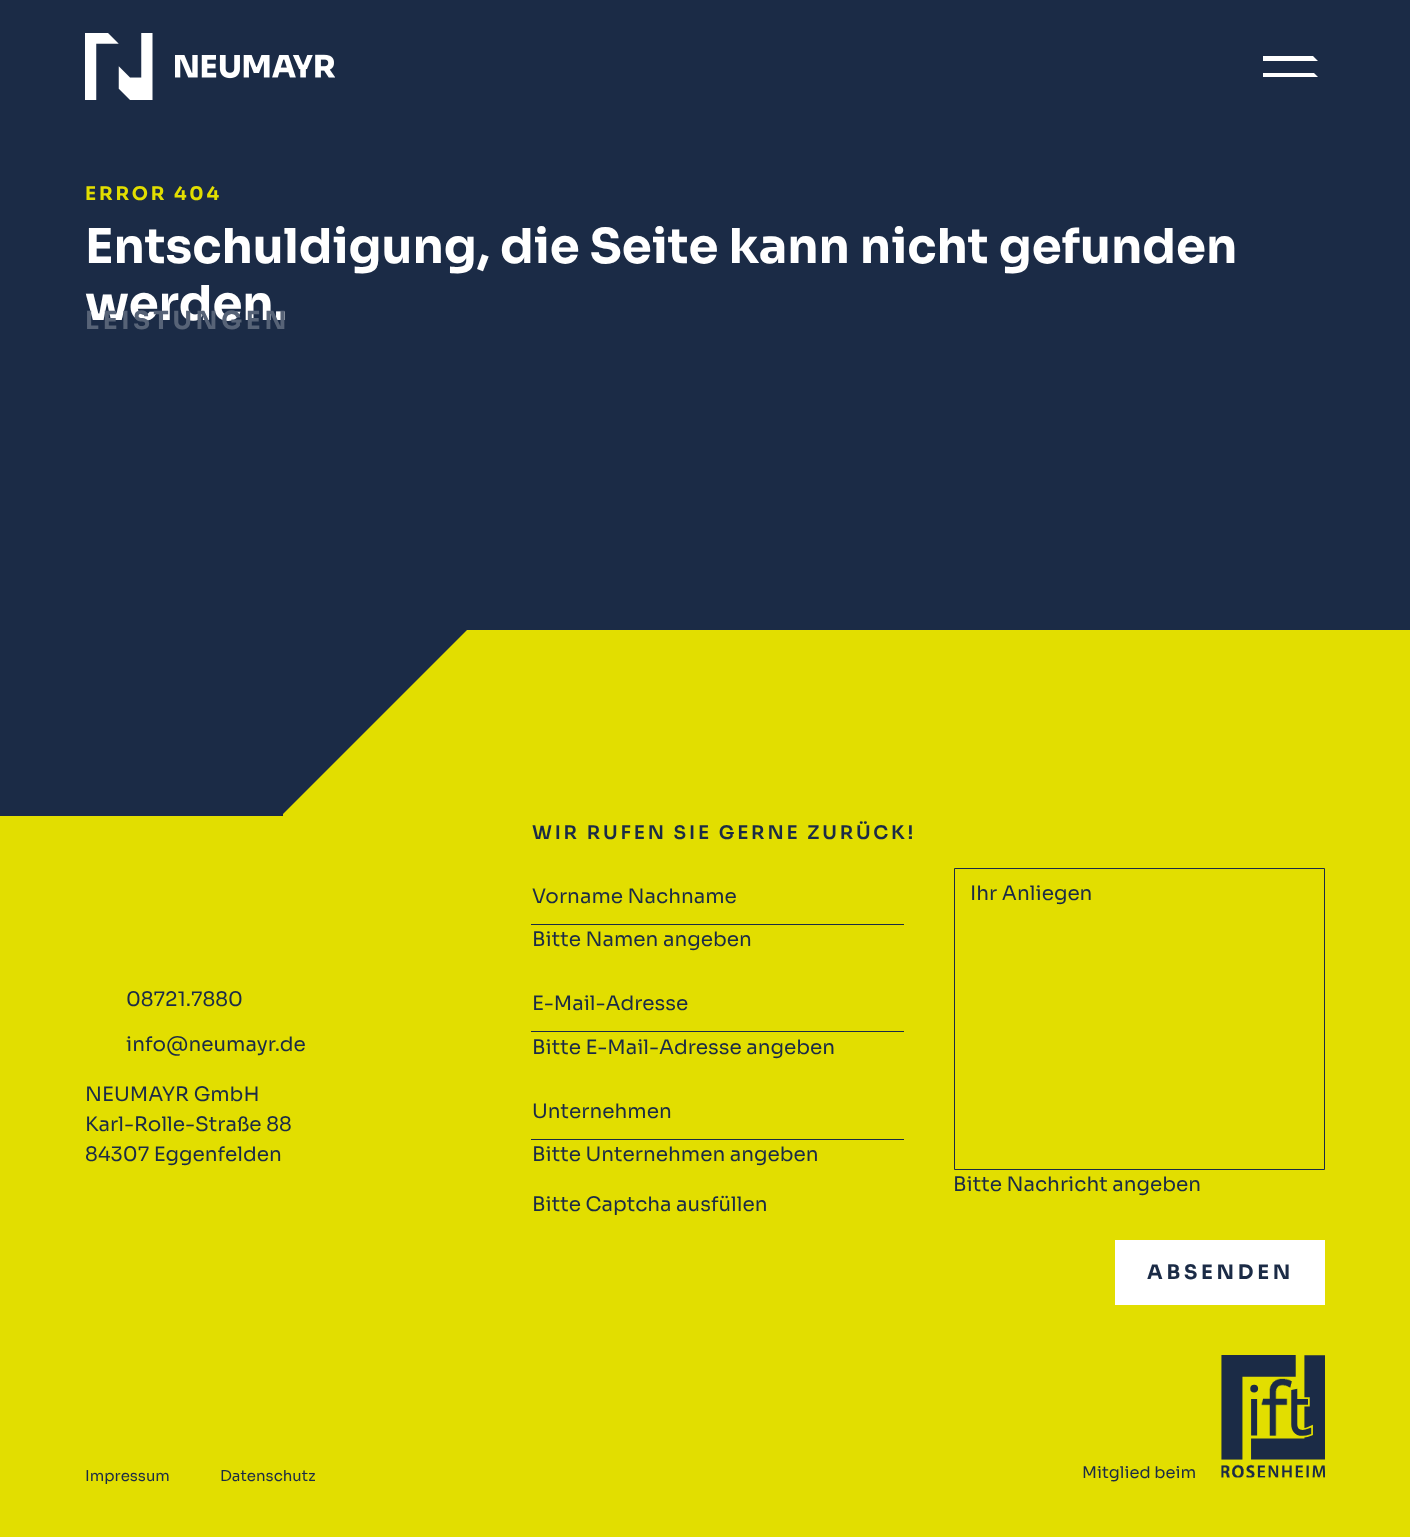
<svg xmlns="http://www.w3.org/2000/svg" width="1410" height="1537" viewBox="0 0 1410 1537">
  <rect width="100%" height="100%" fill="#1b2b46"/>
  <image x="85" y="33" width="250" height="67" href="img/1.png"/>
  <path d="M1263 56H1313L1318 61H1263ZM1263 73H1314L1318 77H1263Z" fill="#fff"/>
  <path d="M0 630h1410v907H0z" fill="#e2de00"/>
  <path d="M0 630h283v186H0z" fill="#1b2b46"/>
  <path d="M281 629H468L281 816Z" fill="#1b2b46"/>
  <path d="M531 924h373v1H531z" fill="#1b2b46"/>
  <path d="M531 1031h373v1H531z" fill="#1b2b46"/>
  <path d="M531 1139h373v1H531z" fill="#1b2b46"/>
  <path d="M954.5 868.5h370v301H954.5z" fill="none" stroke="#1b2b46"/>
  <path d="M1115 1240h210v65H1115z" fill="#fff"/>
  <image x="1221" y="1355" width="104" height="123" href="img/2.png"/>
  <text x="85" y="200" font-family="Sora" font-size="18.75" font-weight="bold" letter-spacing="2.8" fill="#e2de00">ERROR 404</text>
  <g font-family="Sora" font-size="48" font-weight="bold" fill="#fff">
    <text x="85" y="263">Entschuldigung, die Seite kann nicht gefunden</text>
    <text x="85" y="320">werden.</text>
  </g>
  <text x="85" y="329" font-family="Sora" font-size="25" font-weight="bold" letter-spacing="3.75" fill="#576377">LEISTUNGEN</text>
  <g font-family="Sora" font-size="20" fill="#1b2b46">
    <text x="126" y="1006">08721.7880</text>
    <text x="126" y="1051">info@neumayr.de</text>
    <text x="85" y="1101">NEUMAYR GmbH</text>
    <text x="85" y="1131">Karl-Rolle-Straße 88</text>
    <text x="85" y="1161">84307 Eggenfelden</text>
  </g>
  <text x="532" y="839" font-family="Sora" font-size="18.75" font-weight="600" letter-spacing="2.8" fill="#1b2b46">WIR RUFEN SIE GERNE ZURÜCK!</text>
  <g font-family="Sora" font-size="20" fill="#1b2b46">
    <text x="532" y="903">Vorname Nachname</text>
    <text x="532" y="946">Bitte Namen angeben</text>
    <text x="532" y="1010">E-Mail-Adresse</text>
    <text x="532" y="1054">Bitte E-Mail-Adresse angeben</text>
    <text x="532" y="1118">Unternehmen</text>
    <text x="532" y="1161">Bitte Unternehmen angeben</text>
    <text x="970" y="900">Ihr Anliegen</text>
    <text x="953" y="1191">Bitte Nachricht angeben</text>
    <text x="532" y="1211">Bitte Captcha ausfüllen</text>
  </g>
  <text x="1147" y="1279" font-family="Sora" font-size="20" font-weight="bold" letter-spacing="3.75" fill="#1b2b46">ABSENDEN</text>
  <g font-family="Sora" font-size="15" fill="#1b2b46">
    <text x="85" y="1481">Impressum</text>
    <text x="220" y="1481">Datenschutz</text>
  </g>
  <text x="1082" y="1478" font-family="Sora" font-size="16.25" fill="#1b2b46">Mitglied beim</text>
</svg>
